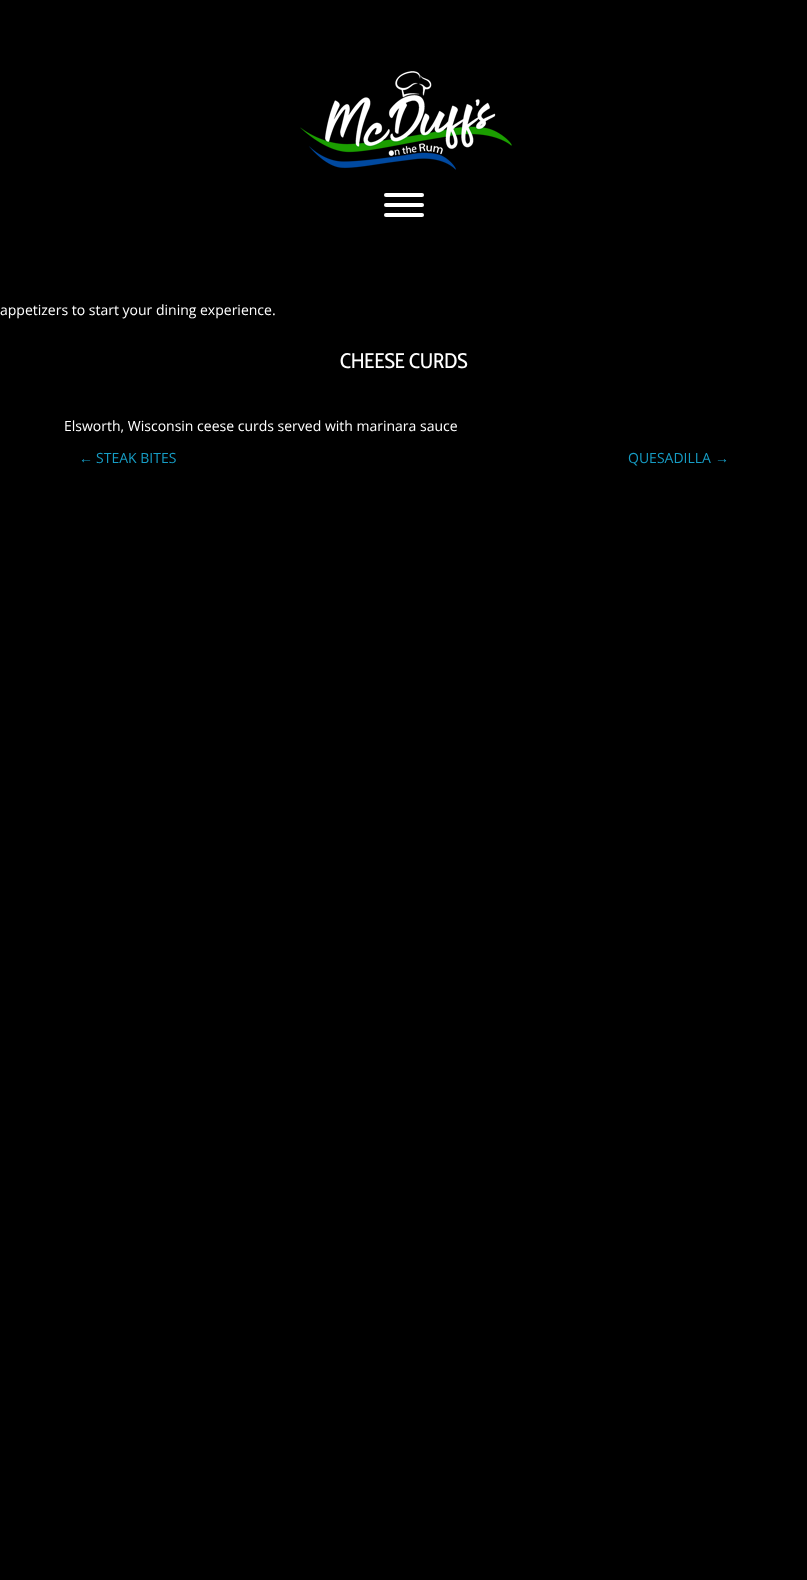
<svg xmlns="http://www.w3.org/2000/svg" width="807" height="1580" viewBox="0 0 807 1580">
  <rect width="100%" height="100%" fill="#000"/>
  <image x="300" y="71" width="212" height="99" href="img/1.png"/>
  <rect x="384" y="213" width="40" height="4" rx="2" fill="#fff"/>
  <rect x="384" y="193" width="40" height="4" rx="2" fill="#fff"/>
  <rect x="384" y="203" width="40" height="4" rx="2" fill="#fff"/>
  <text x="0" y="315" font-family="Open Sans" font-size="14" fill="#fff">appetizers to start your dining experience.</text>
  <text x="340" y="368" font-family="Cabin Condensed" font-size="21" fill="#fff">CHEESE CURDS</text>
  <text x="64" y="431" font-family="Open Sans" font-size="14" fill="#fff">Elsworth, Wisconsin ceese curds served with marinara sauce</text>
  <text x="79" y="463" font-family="Liberation Serif" font-size="14" fill="#169dc5">←</text>
  <g font-family="Open Sans" font-size="14" fill="#169dc5">
    <text x="96" y="463">STEAK BITES</text>
    <text x="628" y="463">QUESADILLA</text>
  </g>
  <text x="715" y="463" font-family="Liberation Serif" font-size="14" fill="#169dc5">→</text>
</svg>
